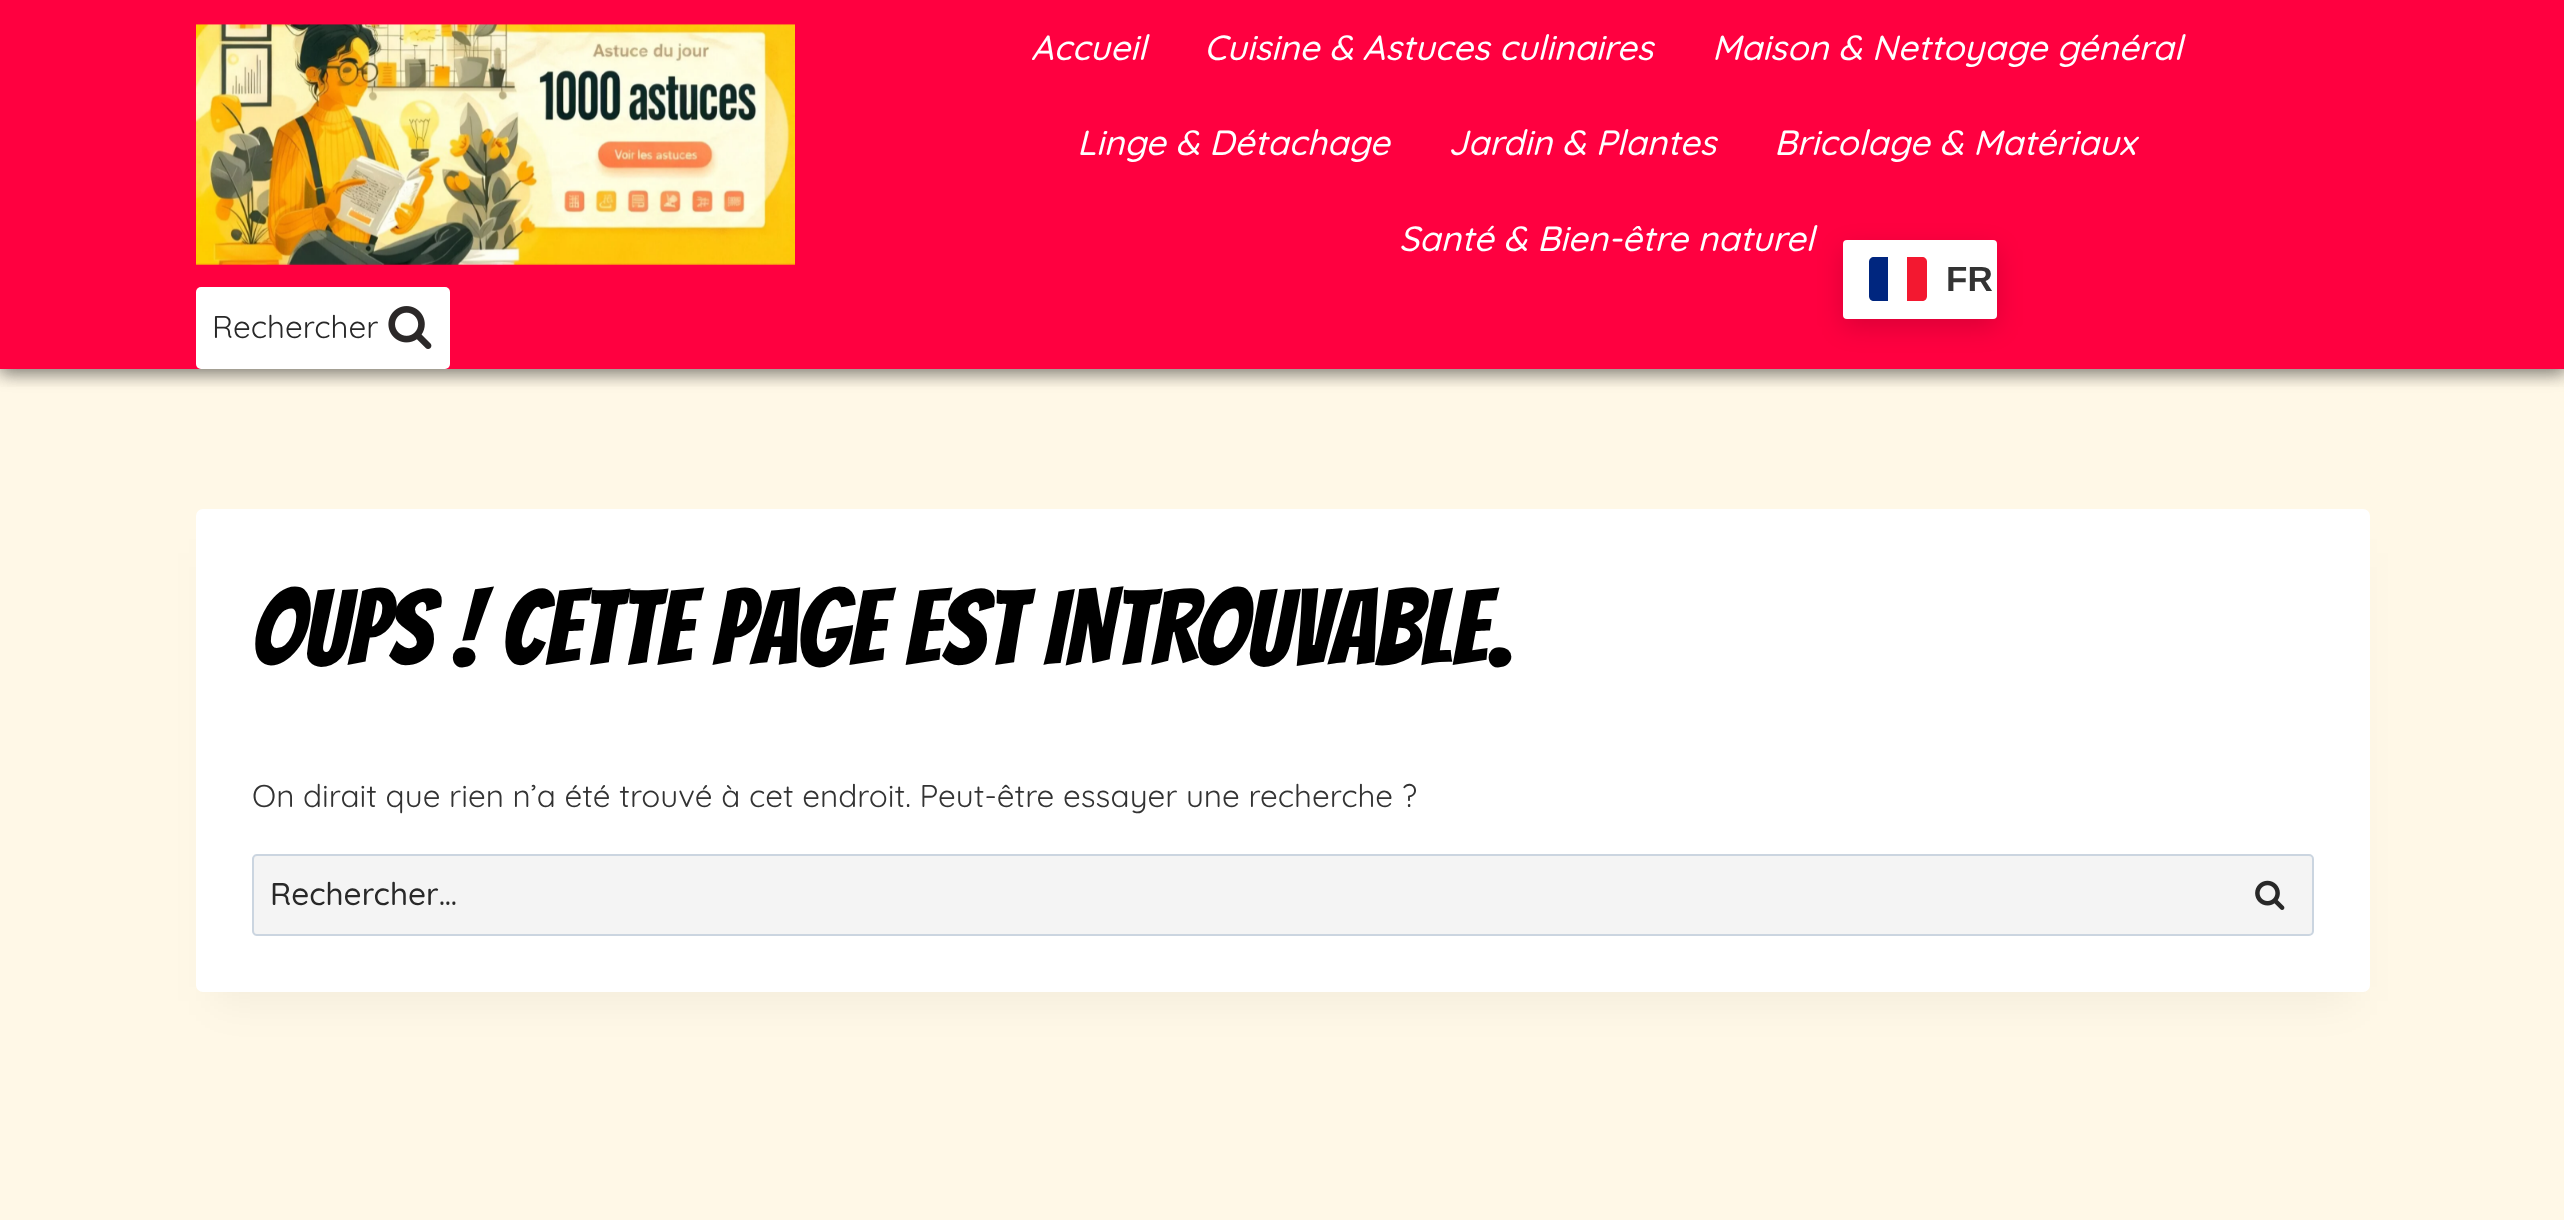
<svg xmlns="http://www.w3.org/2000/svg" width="2564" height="1220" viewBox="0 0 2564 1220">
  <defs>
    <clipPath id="clip1"><path d="M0 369h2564v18H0z"/></clipPath>
  </defs>
  <rect width="100%" height="100%" fill="#fff8e7"/>
  <path d="M0 4h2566v369H0z" fill="#0000004d" filter="blur(9px)"/>
  <path d="M0 0h2564v369H0z" fill="#ff0040"/>
  <g clip-path="url(#clip1)">
    <path d="M0 4h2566v369H0z" fill="#0000004d" filter="blur(9px)"/>
  </g>
  <image x="196" y="24" width="599" height="241" href="img/1.png"/>
  <rect x="1843" y="249" width="154" height="78" rx="4" fill="#00000026" filter="blur(13px)"/>
  <rect x="1843" y="240" width="154" height="79" rx="4" fill="#fff"/>
  <path d="M1874 257H1888V301H1874C1871 301 1869 299 1869 296V262C1869 259 1871 257 1874 257Z" fill="#00267f"/>
  <path d="M1907 257H1922C1925 257 1927 259 1927 262V296C1927 299 1925 301 1922 301H1907Z" fill="#f31830"/>
  <rect x="196" y="287" width="254" height="82" rx="5" fill="#fff"/>
  <image x="388" y="306" width="44" height="43" href="img/2.png"/>
  <path d="M214 553h2138v448H214z" fill="#0000000d" filter="blur(22px)"/>
  <rect x="196" y="509" width="2174" height="483" rx="7" fill="#fff"/>
  <rect x="253" y="855" width="2060" height="80" rx="4" fill="#f4f4f4" stroke="#cbd5e0" stroke-width="2"/>
  <image x="2255" y="880" width="30" height="30" href="img/3.png"/>
  <g font-family="Quicksand" font-size="35" font-weight="500" font-style="italic" fill="#fff">
    <text x="1031" y="60">Accueil</text>
    <text x="1204" y="60">Cuisine &amp; Astuces culinaires</text>
    <text x="1712" y="60">Maison &amp; Nettoyage général</text>
    <text x="1077" y="155">Linge &amp; Détachage</text>
    <text x="1448" y="155">Jardin &amp; Plantes</text>
    <text x="1774" y="155">Bricolage &amp; Matériaux</text>
    <text x="1399" y="251">Santé &amp; Bien-être naturel</text>
  </g>
  <text x="1946" y="291" font-family="Liberation Sans" font-size="35" font-weight="bold" fill="#333">FR</text>
  <text x="212" y="338" font-family="Quicksand" font-size="31.5" fill="#282828">Rechercher</text>
  <text x="252" y="665" font-family="Bangers" font-size="105" fill="#000">OUPS ! CETTE PAGE EST INTROUVABLE.</text>
  <text x="252" y="807" font-family="Quicksand" font-size="31.5" fill="#333">On dirait que rien n’a été trouvé à cet endroit. Peut-être essayer une recherche ?</text>
  <text x="270" y="905" font-family="Quicksand" font-size="31.5" font-weight="500" fill="#282828">Rechercher…</text>
</svg>
